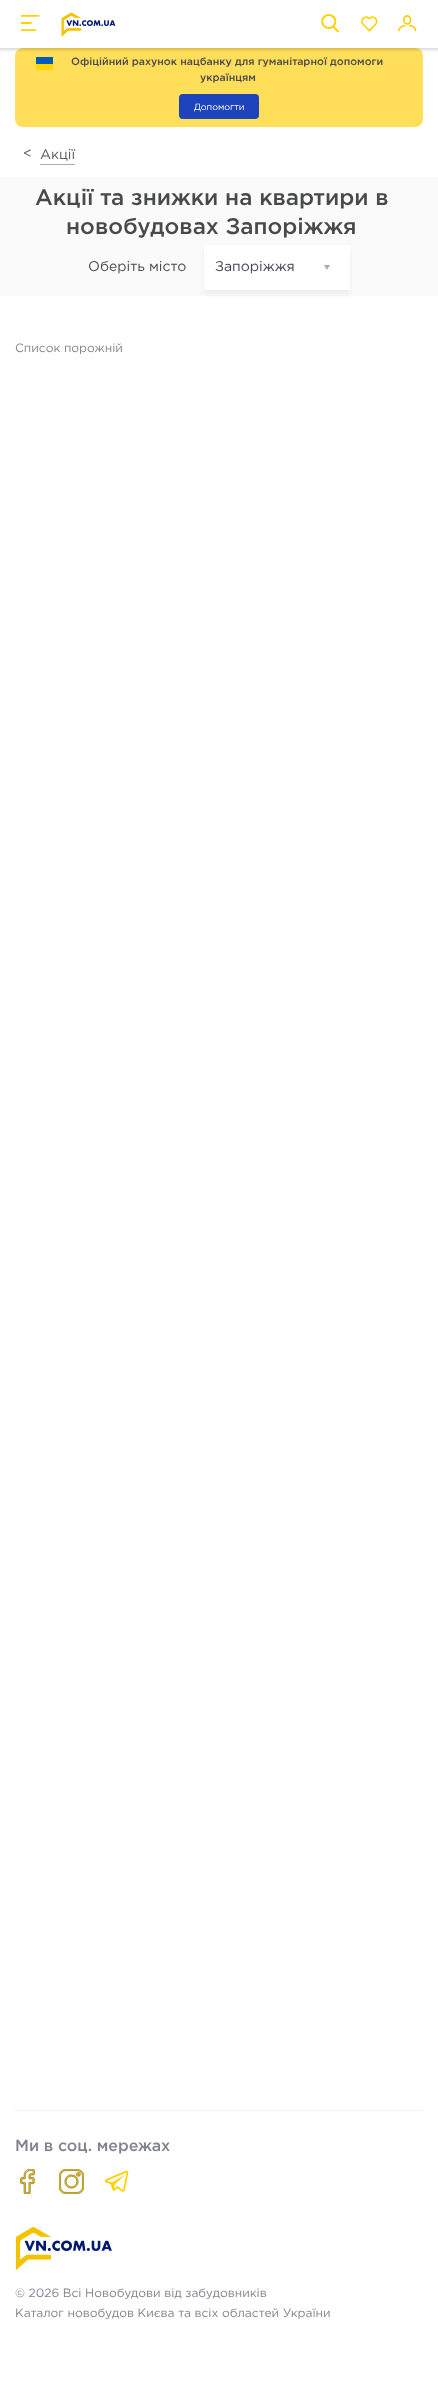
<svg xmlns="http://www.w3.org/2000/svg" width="438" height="2397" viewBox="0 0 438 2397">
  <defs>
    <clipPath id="clip1"><path d="M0 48h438v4H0z"/></clipPath>
  </defs>
  <rect width="100%" height="100%" fill="#fff"/>
  <rect x="15" y="48" width="408" height="79" rx="8" fill="#ffde5a"/>
  <g clip-path="url(#clip1)">
    <path d="M-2 -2h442v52H-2z" fill="#00000026" filter="blur(1.5px)"/>
  </g>
  <image x="21" y="15" width="19" height="16" href="img/1.png"/>
  <image x="61" y="12" width="55" height="25" href="img/2.png"/>
  <image x="321" y="14" width="19" height="19" href="img/3.png"/>
  <image x="361" y="16" width="17" height="16" href="img/4.png"/>
  <image x="398" y="15" width="19" height="17" href="img/5.png"/>
  <path d="M36 64h17v6H36z" fill="#ffd500"/>
  <path d="M36 57h17v7H36z" fill="#005bbb"/>
  <rect x="179" y="94" width="80" height="25" rx="4" fill="#1d43bd"/>
  <path d="M40 164h35v1H40z" fill="#acadb0"/>
  <path d="M0 177h438v119H0z" fill="#fafafa"/>
  <path d="M204 250h146v45H204z" fill="#1718190d" filter="blur(2.5px)"/>
  <path d="M204 245h146v45H204z" fill="#fff"/>
  <path d="M327 270L324 265H330L327 270" fill="#adadad" fill-rule="evenodd"/>
  <path d="M15 2110h408v1H15z" fill="#f1f1f1"/>
  <image x="20" y="2169" width="15" height="25" href="img/6.png"/>
  <image x="59" y="2169" width="25" height="25" href="img/7.png"/>
  <image x="104" y="2170" width="25" height="22" href="img/8.png"/>
  <image x="15" y="2227" width="97" height="43" href="img/9.png"/>
  <g font-family="Gotham" font-size="10.5" font-weight="500" fill="#48494a">
    <text x="71" y="65">Офіційний рахунок нацбанку для гуманітарної допомоги</text>
    <text x="200" y="81">українцям</text>
  </g>
  <text x="194" y="110" font-family="Gotham" font-size="9" fill="#fff">Допомогти</text>
  <g font-family="Gotham" font-size="14" fill="#595b60">
    <text x="23" y="158">&lt;</text>
    <text x="40" y="159">Акції</text>
  </g>
  <g font-family="Gotham" font-size="22.5" font-weight="500" fill="#48494a">
    <text x="35" y="205">Акції та знижки на квартири в</text>
    <text x="66" y="234">новобудовах Запоріжжя</text>
  </g>
  <text x="88" y="271" font-family="Gotham" font-size="14" fill="#48494a">Оберіть місто</text>
  <text x="215" y="271" font-family="Gotham" font-size="14" fill="#3e4553">Запоріжжя</text>
  <text x="15" y="352" font-family="Gotham" font-size="12" fill="#80848d">Список порожній</text>
  <text x="15" y="2151" font-family="Gotham" font-size="16" font-weight="500" fill="#80848d">Ми в соц. мережах</text>
  <g font-family="Gotham" font-size="12" fill="#80848d">
    <text x="15" y="2297">© 2026 Всі Новобудови від забудовників</text>
    <text x="15" y="2317">Каталог новобудов Києва та всіх областей України</text>
  </g>
</svg>
